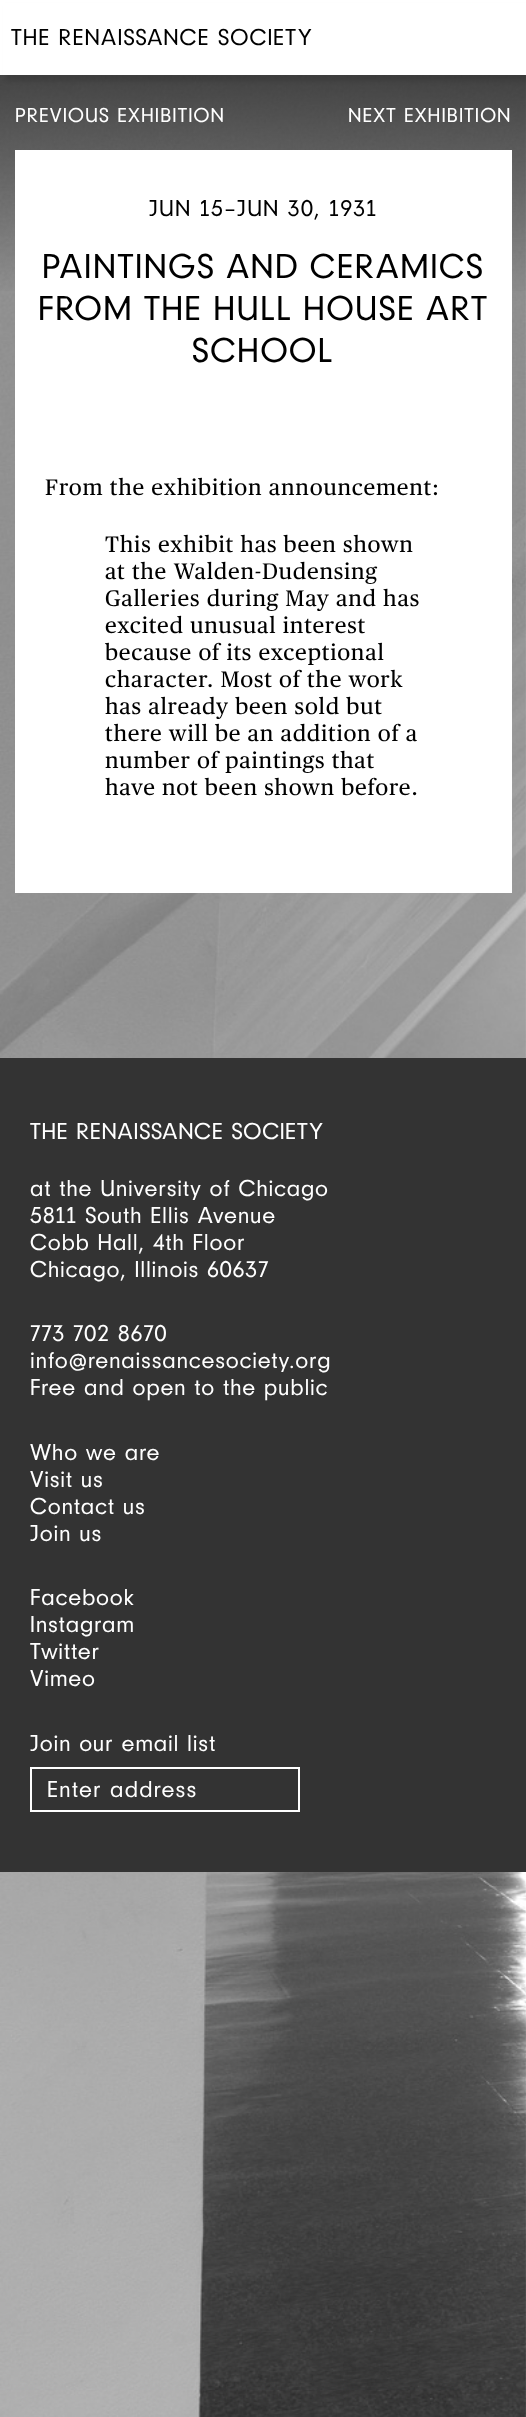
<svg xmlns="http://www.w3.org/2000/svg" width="526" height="2417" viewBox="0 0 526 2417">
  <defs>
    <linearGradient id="g1" gradientUnits="userSpaceOnUse" x1="263" y1="0" x2="263" y2="300"><stop offset="0" stop-color="#000" stop-opacity="0.7"/><stop offset="1" stop-color="#000" stop-opacity="0"/></linearGradient>
  </defs>
  <rect width="100%" height="100%" fill="#fff"/>
  <image x="0" y="75" width="526" height="2342" href="img/1.png"/>
  <path d="M0 75h526v216H0z" fill="url(#g1)"/>
  <path d="M6 6h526v75H6z" fill="#0000001a" filter="blur(2px)"/>
  <path d="M3 3h523v72H3z" fill="#fff"/>
  <path d="M15 150h497v743H15z" fill="#fff"/>
  <path d="M0 1058h526v814H0z" fill="#333"/>
  <path d="M31 1768h268v43H31z" fill="none" stroke="#fff" stroke-width="2"/>
  <text x="11" y="45" font-family="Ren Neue" font-size="24" letter-spacing="1.1" fill="#000">THE RENAISSANCE SOCIETY</text>
  <g font-family="Ren Neue" font-size="21" letter-spacing="1.1" fill="#fff">
    <text x="15" y="122">PREVIOUS EXHIBITION</text>
    <text x="348" y="122">NEXT EXHIBITION</text>
  </g>
  <text x="149" y="216" font-family="Ren Neue" font-size="24" letter-spacing="1.1" fill="#000">JUN 15–JUN 30, 1931</text>
  <g font-family="Ren Neue" font-size="36" letter-spacing="1.5" fill="#000">
    <text x="42" y="278" word-spacing="-1.5">PAINTINGS AND CERAMICS</text>
    <text x="38" y="320" word-spacing="-1.5">FROM THE HULL HOUSE ART</text>
    <text x="192" y="362">SCHOOL</text>
  </g>
  <g font-family="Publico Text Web" font-size="22.5" letter-spacing="0.75" fill="#000">
    <text x="45" y="495">From the exhibition announcement:</text>
    <text x="105" y="552">This exhibit has been shown</text>
    <text x="105" y="579">at the Walden-Dudensing</text>
    <text x="105" y="606">Galleries during May and has</text>
    <text x="105" y="633">excited unusual interest</text>
    <text x="105" y="660">because of its exceptional</text>
    <text x="105" y="687">character. Most of the work</text>
    <text x="105" y="714">has already been sold but</text>
    <text x="105" y="741">there will be an addition of a</text>
    <text x="105" y="768">number of paintings that</text>
    <text x="105" y="795">have not been shown before.</text>
  </g>
  <g font-family="Ren Neue" font-size="24" letter-spacing="0.75" fill="#fff">
    <text x="30" y="1139">THE RENAISSANCE SOCIETY</text>
    <text x="30" y="1196">at the University of Chicago</text>
    <text x="30" y="1223">5811 South Ellis Avenue</text>
    <text x="30" y="1250">Cobb Hall, 4th Floor</text>
    <text x="30" y="1277">Chicago, Illinois 60637</text>
    <text x="30" y="1341">773 702 8670</text>
    <text x="30" y="1368">info@renaissancesociety.org</text>
    <text x="30" y="1395">Free and open to the public</text>
    <text x="30" y="1460">Who we are</text>
    <text x="30" y="1487">Visit us</text>
    <text x="30" y="1514">Contact us</text>
    <text x="30" y="1541">Join us</text>
    <text x="30" y="1605">Facebook</text>
    <text x="30" y="1632">Instagram</text>
    <text x="30" y="1659">Twitter</text>
    <text x="30" y="1686">Vimeo</text>
    <text x="30" y="1751">Join our email list</text>
  </g>
  <text x="47" y="1797" font-family="Ren Neue" font-size="24" letter-spacing="1.1" fill="#fff">Enter address</text>
</svg>
